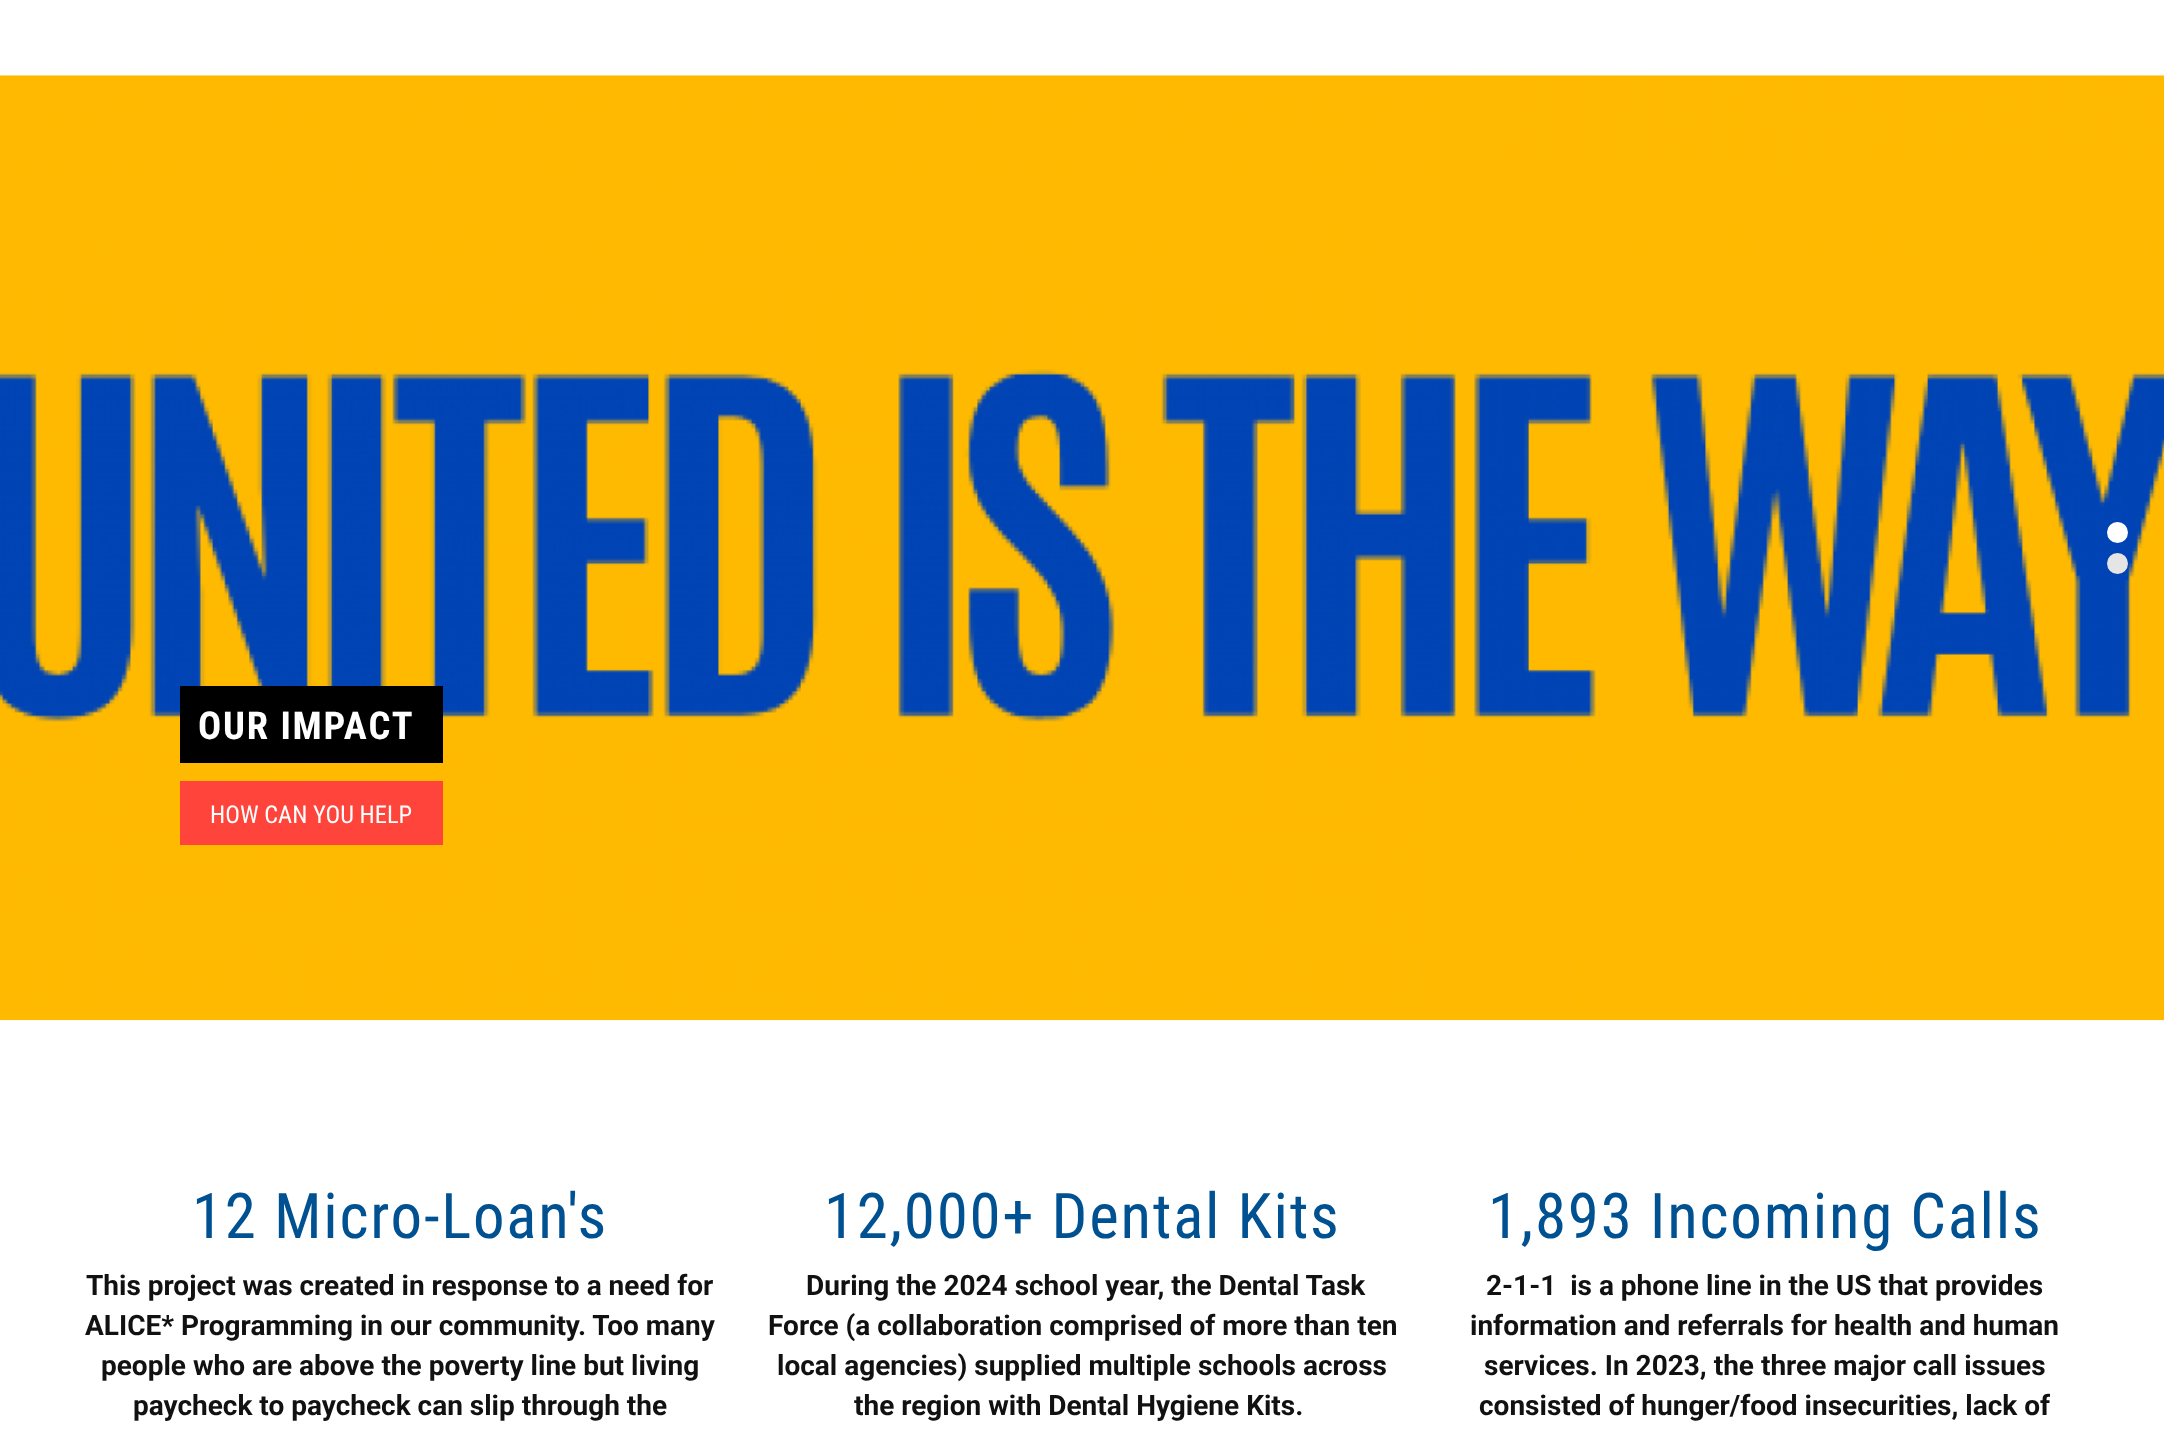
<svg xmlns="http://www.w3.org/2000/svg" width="2164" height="1434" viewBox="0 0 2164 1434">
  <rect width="100%" height="100%" fill="#fff"/>
  <image x="0" y="75" width="2164" height="946" href="img/1.png"/>
  <circle cx="2117.5" cy="532.5" r="10.5" fill="#fff"/>
  <circle cx="2117.5" cy="563.5" r="10.5" fill="#e5e5e5"/>
  <path d="M180 686h263v77H180z" fill="#000"/>
  <path d="M180 781h263v64H180z" fill="#ff443b"/>
  <text x="198" y="739" font-family="Roboto Condensed" font-size="38.5" font-weight="bold" letter-spacing="1.75" fill="#fff">OUR IMPACT</text>
  <text x="210" y="823" font-family="Roboto Condensed" font-size="24.5" fill="#fff">HOW CAN YOU HELP</text>
  <text x="192" y="1238" font-family="Roboto Condensed" font-size="63" letter-spacing="1.75" fill="#005191">12 Micro-Loan's</text>
  <g font-family="Roboto" font-size="28" font-weight="bold" fill="#111">
    <text x="86" y="1295">This project was created in response to a need for</text>
    <text x="85" y="1335">ALICE* Programming in our community. Too many</text>
    <text x="101" y="1375">people who are above the poverty line but living</text>
    <text x="133" y="1415">paycheck to paycheck can slip through the</text>
  </g>
  <text x="824" y="1238" font-family="Roboto Condensed" font-size="63" letter-spacing="1.75" fill="#005191">12,000+ Dental Kits</text>
  <g font-family="Roboto" font-size="28" font-weight="bold" fill="#111">
    <text x="806" y="1295">During the 2024 school year, the Dental Task</text>
    <text x="768" y="1335">Force (a collaboration comprised of more than ten</text>
    <text x="777" y="1375">local agencies) supplied multiple schools across</text>
    <text x="854" y="1415">the region with Dental Hygiene Kits.</text>
  </g>
  <text x="1488" y="1238" font-family="Roboto Condensed" font-size="63" letter-spacing="1.75" fill="#005191">1,893 Incoming Calls</text>
  <g font-family="Roboto" font-size="28" font-weight="bold" fill="#111">
    <text x="1486" y="1295" xml:space="preserve">2-1-1  is a phone line in the US that provides</text>
    <text x="1470" y="1335">information and referrals for health and human</text>
    <text x="1484" y="1375">services. In 2023, the three major call issues</text>
    <text x="1479" y="1415">consisted of hunger/food insecurities, lack of</text>
  </g>
</svg>
